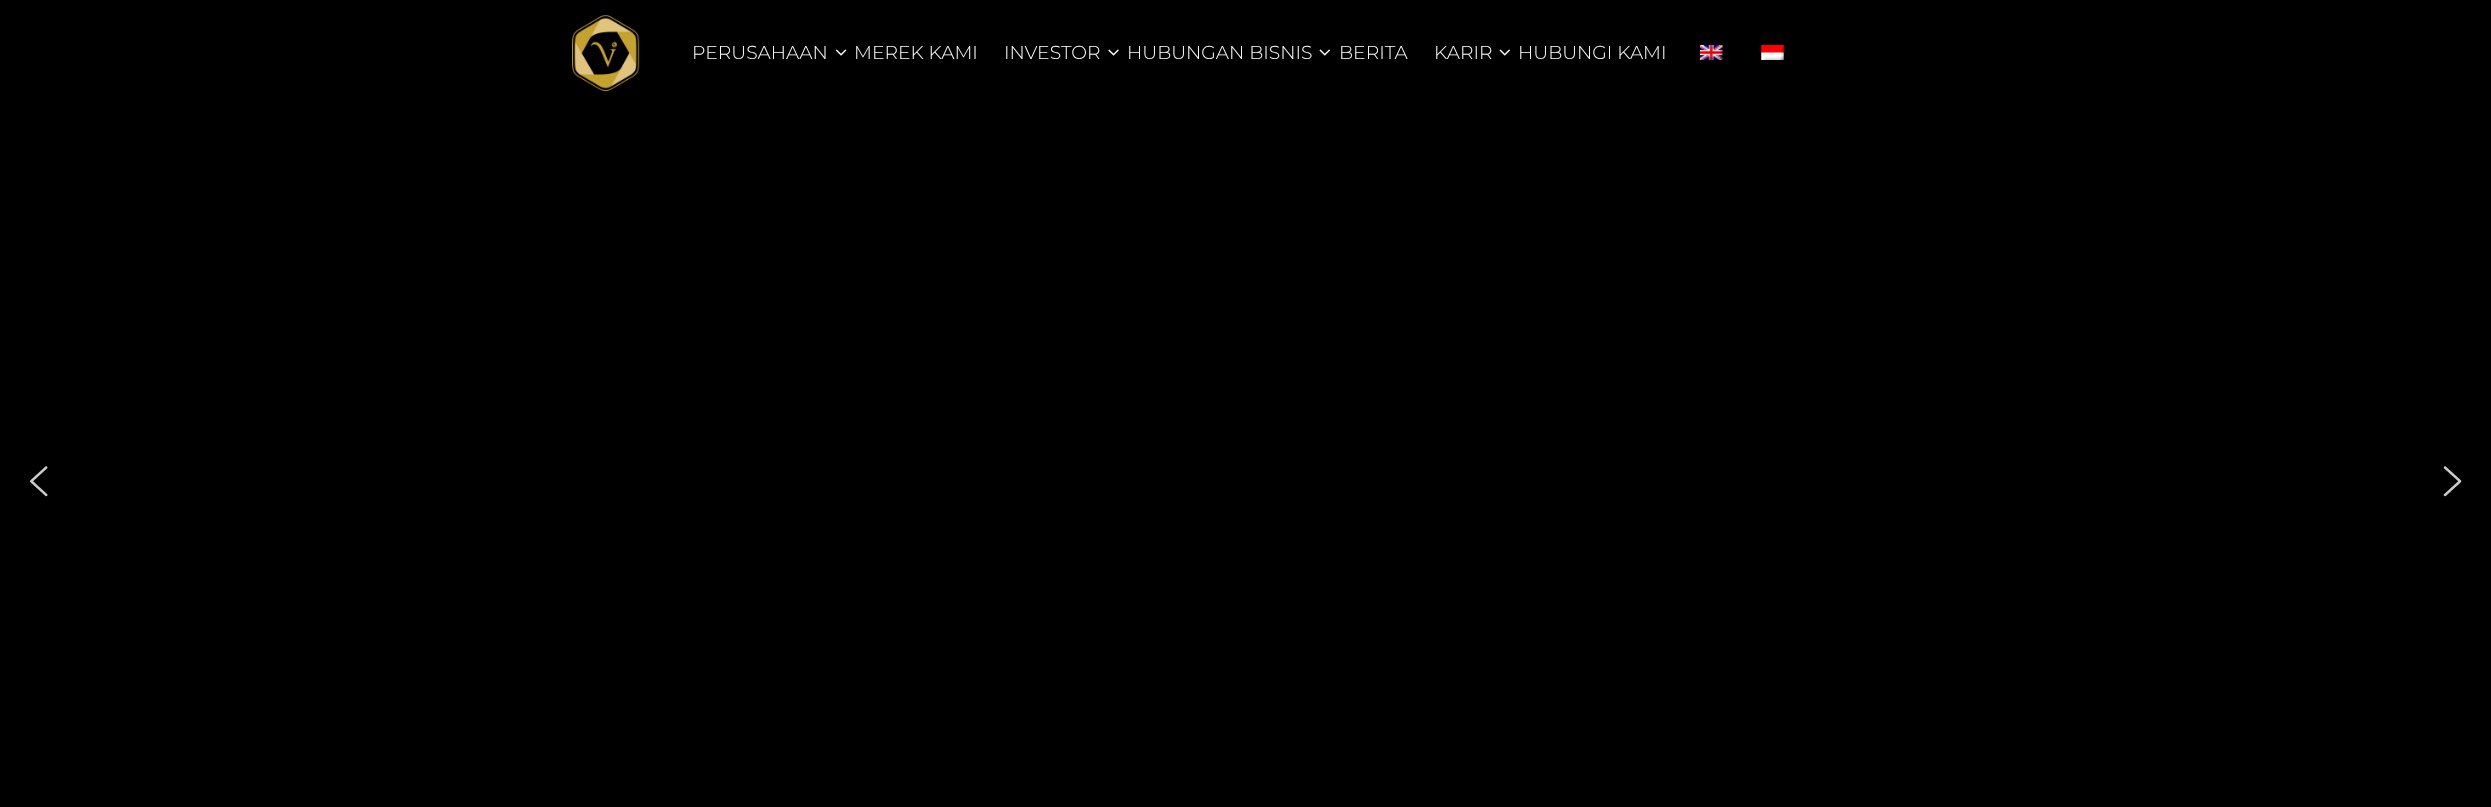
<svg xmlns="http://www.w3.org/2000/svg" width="2491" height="807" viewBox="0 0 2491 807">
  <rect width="100%" height="100%" fill="#000"/>
  <image x="572" y="15" width="68" height="76" href="img/1.png"/>
  <image x="835" y="49" width="12" height="7" href="img/2.png"/>
  <image x="1108" y="49" width="11" height="7" href="img/3.png"/>
  <image x="1319" y="49" width="11" height="7" href="img/4.png"/>
  <image x="1499" y="49" width="11" height="7" href="img/4.png"/>
  <image x="1700" y="45" width="23" height="15" href="img/5.png"/>
  <image x="1761" y="45" width="23" height="15" href="img/6.png"/>
  <image x="30" y="466" width="18" height="31" href="img/7.png"/>
  <image x="2443" y="466" width="19" height="31" href="img/8.png"/>
  <g font-family="Montserrat" font-size="18.75" font-weight="300" fill="#fff">
    <text x="692" y="59">PERUSAHAAN</text>
    <text x="854" y="59">MEREK KAMI</text>
    <text x="1004" y="59">INVESTOR</text>
    <text x="1127" y="59">HUBUNGAN BISNIS</text>
    <text x="1339" y="59">BERITA</text>
    <text x="1434" y="59">KARIR</text>
    <text x="1518" y="59">HUBUNGI KAMI</text>
  </g>
</svg>
